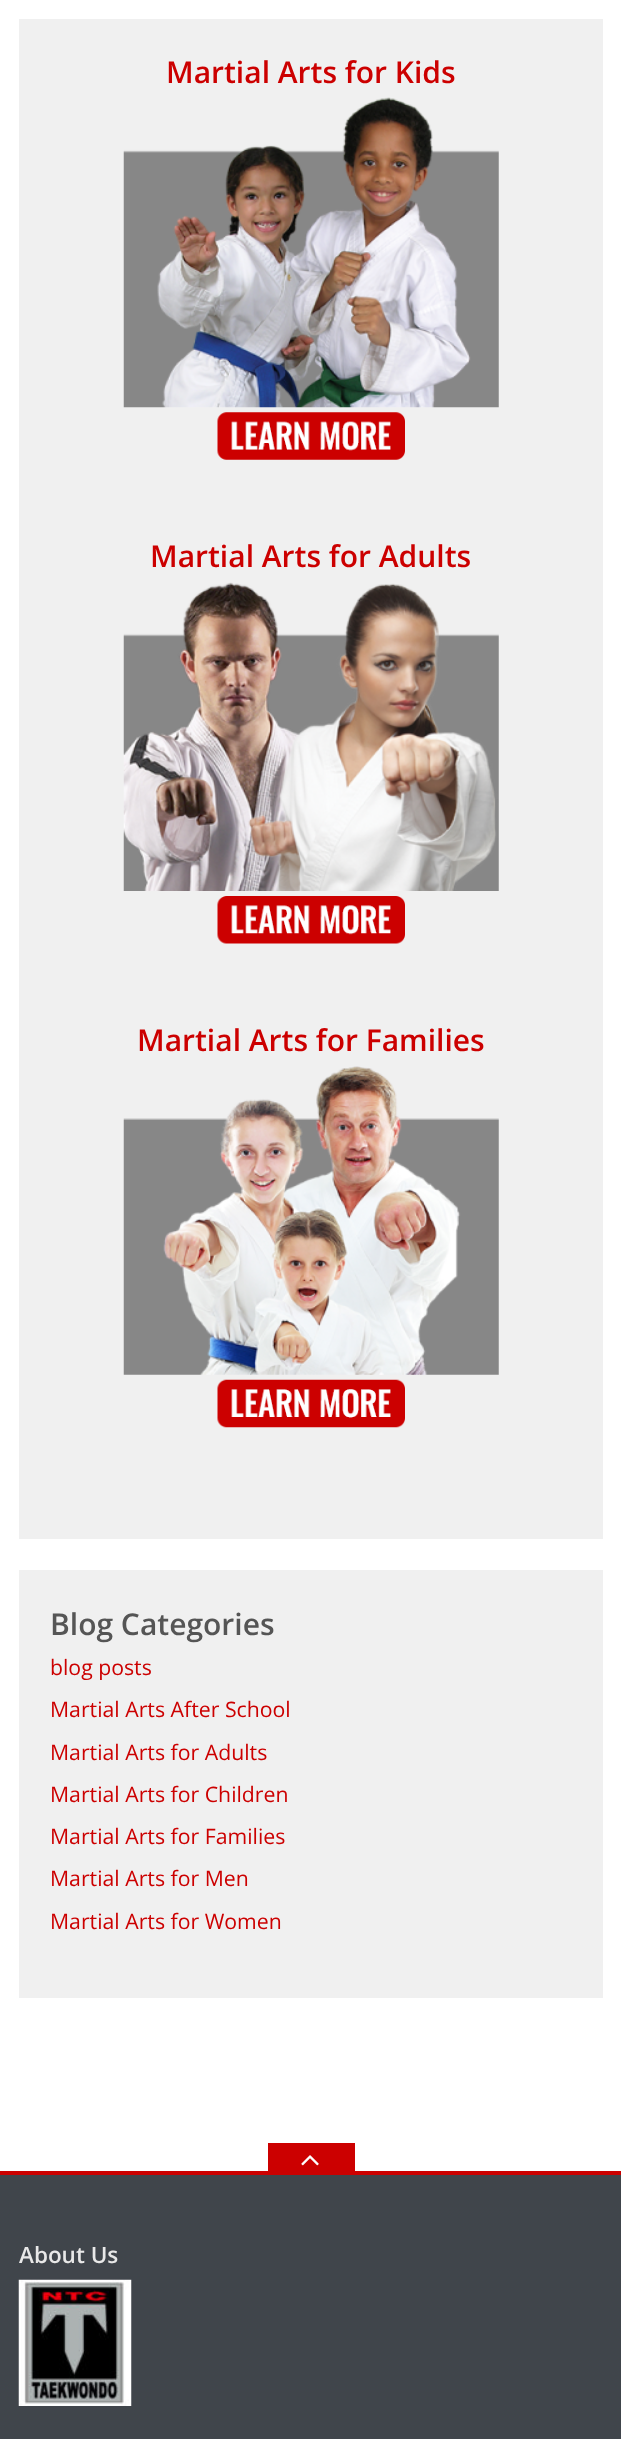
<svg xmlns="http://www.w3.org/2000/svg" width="621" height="2439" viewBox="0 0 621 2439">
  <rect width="100%" height="100%" fill="#fff"/>
  <path d="M19 19h584v1520H19z" fill="#f0f0f0"/>
  <image x="123" y="97" width="376" height="311" href="img/1.png"/>
  <image x="217" y="412" width="188" height="48" href="img/2.png"/>
  <image x="123" y="582" width="376" height="309" href="img/3.png"/>
  <image x="217" y="896" width="188" height="48" href="img/4.png"/>
  <image x="123" y="1066" width="376" height="309" href="img/5.png"/>
  <image x="217" y="1379" width="188" height="49" href="img/6.png"/>
  <path d="M19 1570h584v428H19z" fill="#f0f0f0"/>
  <path d="M0 2171h621v4H0z" fill="#c00"/>
  <path d="M268 2143h87v28H268z" fill="#c00"/>
  <image x="301" y="2155" width="18" height="11" href="img/7.png"/>
  <path d="M0 2175h621v264H0z" fill="#40454b"/>
  <image x="18" y="2279" width="114" height="127" href="img/8.png"/>
  <g font-family="Open Sans" font-size="30" font-weight="600" fill="#c00">
    <text x="166" y="83">Martial Arts for Kids</text>
    <text x="150" y="567">Martial Arts for Adults</text>
    <text x="137" y="1051">Martial Arts for Families</text>
  </g>
  <text x="50" y="1635" font-family="Open Sans" font-size="30" font-weight="600" fill="#555">Blog Categories</text>
  <g font-family="Open Sans" font-size="21.25" fill="#c00">
    <text x="50" y="1675">blog posts</text>
    <text x="50" y="1717">Martial Arts After School</text>
    <text x="50" y="1760">Martial Arts for Adults</text>
    <text x="50" y="1802">Martial Arts for Children</text>
    <text x="50" y="1844">Martial Arts for Families</text>
    <text x="50" y="1886">Martial Arts for Men</text>
    <text x="50" y="1929">Martial Arts for Women</text>
  </g>
  <text x="19" y="2263" font-family="Open Sans" font-size="22.5" font-weight="600" fill="#e8e8e8">About Us</text>
</svg>
